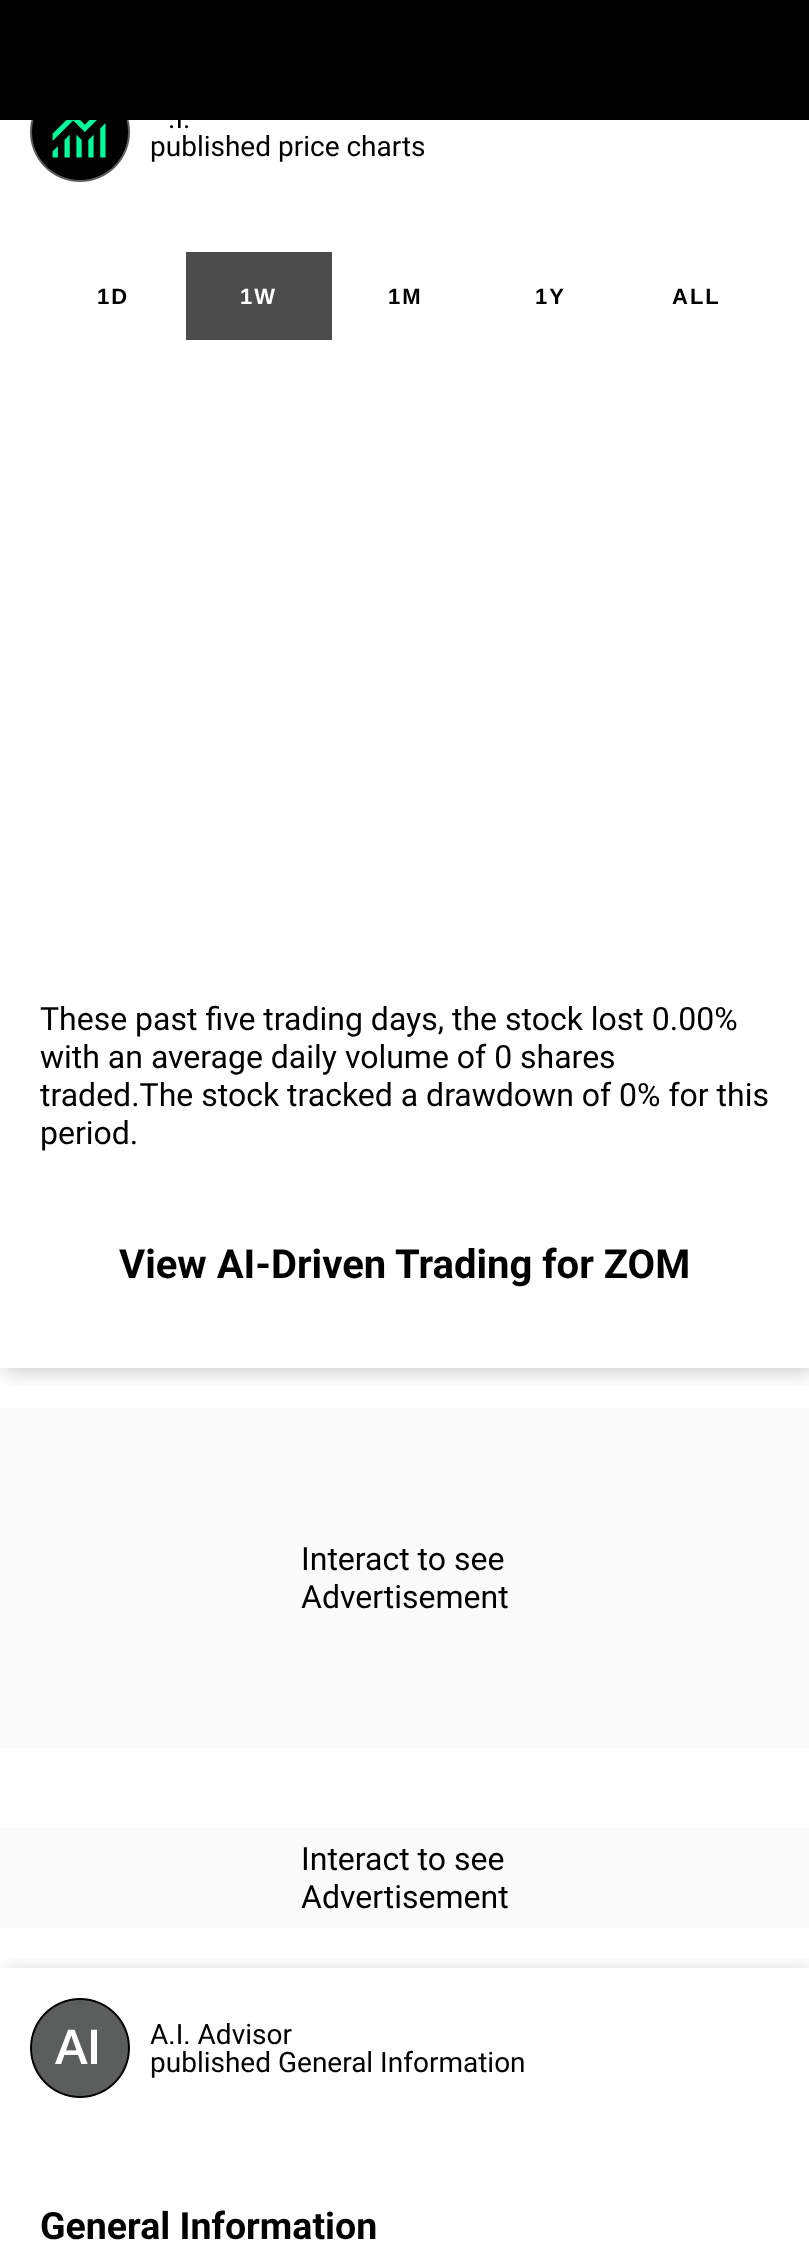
<svg xmlns="http://www.w3.org/2000/svg" width="809" height="2254" viewBox="0 0 809 2254">
  <defs>
    <clipPath id="clip1"><path d="M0 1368h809v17H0z"/></clipPath>
    <linearGradient id="g1" gradientUnits="userSpaceOnUse" x1="-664" y1="1512" x2="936" y2="1512"><stop offset="0.08" stop-color="#fafafa"/><stop offset="0.18" stop-color="#ddd"/><stop offset="0.33" stop-color="#fafafa"/></linearGradient>
    <linearGradient id="g2" gradientUnits="userSpaceOnUse" x1="-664" y1="1932" x2="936" y2="1932"><stop offset="0.08" stop-color="#fafafa"/><stop offset="0.18" stop-color="#ddd"/><stop offset="0.33" stop-color="#fafafa"/></linearGradient>
    <clipPath id="clip2"><path d="M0 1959h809v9H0z"/></clipPath>
  </defs>
  <rect width="100%" height="100%" fill="#fff"/>
  <g clip-path="url(#clip1)">
    <path d="M4 56h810v1316H4z" fill="#00000033" filter="blur(10px)"/>
  </g>
  <path d="M0 0h809v120H0z" fill="#000"/>
  <image x="30" y="120" width="100" height="62" href="img/1.png"/>
  <path d="M186 252h146v88H186z" fill="#4c4c4c"/>
  <path d="M0 1408h809v340H0z" fill="url(#g1)"/>
  <path d="M0 1828h809v100H0z" fill="url(#g2)"/>
  <g clip-path="url(#clip2)">
    <path d="M4 1972h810v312H4z" fill="#00000033" filter="blur(10px)"/>
  </g>
  <image x="30" y="1998" width="100" height="100" href="img/2.png"/>
  <g font-family="Roboto" font-size="28" fill="#000">
    <text x="168" y="128">.I.</text>
    <text x="150" y="156">published price charts</text>
  </g>
  <text x="97" y="304" font-family="Liberation Sans" font-size="22" font-weight="bold" letter-spacing="2" fill="#000">1D</text>
  <text x="240" y="304" font-family="Liberation Sans" font-size="22" font-weight="bold" letter-spacing="2" fill="#fff">1W</text>
  <g font-family="Liberation Sans" font-size="22" font-weight="bold" letter-spacing="2" fill="#000">
    <text x="388" y="304">1M</text>
    <text x="535" y="304">1Y</text>
    <text x="672" y="304">ALL</text>
  </g>
  <g font-family="Roboto" font-size="32" fill="#000">
    <text x="40" y="1030">These past five trading days, the stock lost 0.00%</text>
    <text x="40" y="1068">with an average daily volume of 0 shares</text>
    <text x="40" y="1106">traded.The stock tracked a drawdown of 0% for this</text>
    <text x="40" y="1144">period.</text>
  </g>
  <text x="119" y="1278" font-family="Roboto" font-size="40" font-weight="bold" fill="#000">View AI-Driven Trading for ZOM</text>
  <g font-family="Roboto" font-size="32" fill="#000">
    <text x="301" y="1570">Interact to see</text>
    <text x="301" y="1608">Advertisement</text>
    <text x="301" y="1870">Interact to see</text>
    <text x="301" y="1908">Advertisement</text>
  </g>
  <g font-family="Roboto" font-size="28" fill="#000">
    <text x="150" y="2044">A.I. Advisor</text>
    <text x="150" y="2072">published General Information</text>
  </g>
  <text x="40" y="2239" font-family="Roboto" font-size="37.5" font-weight="bold" fill="#000">General Information</text>
</svg>
